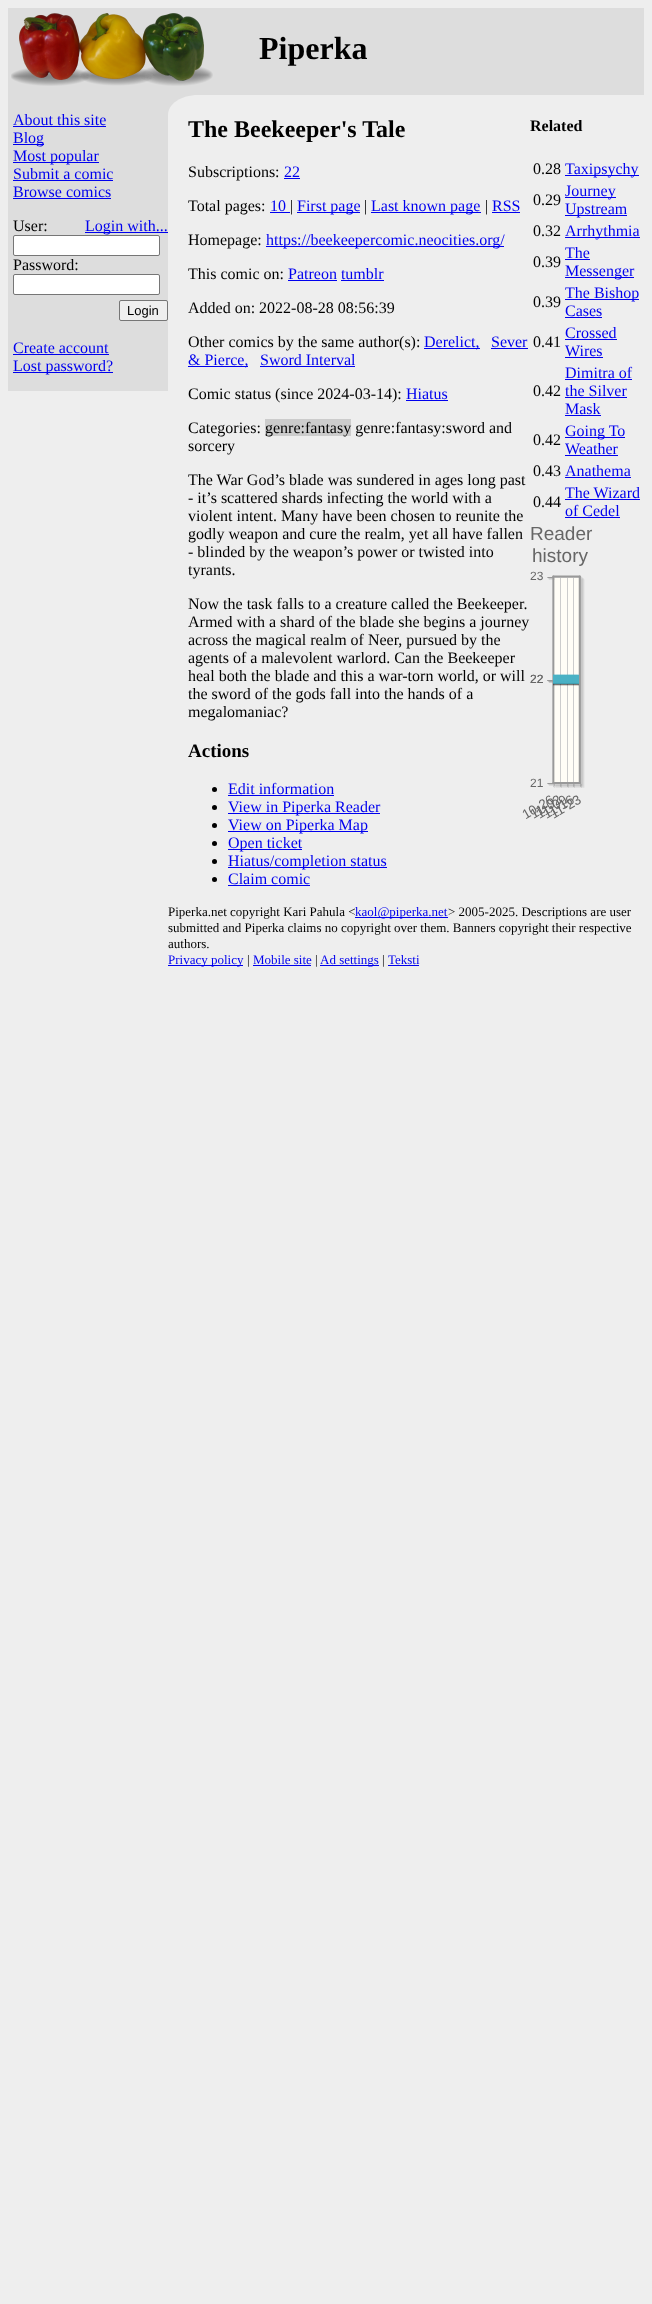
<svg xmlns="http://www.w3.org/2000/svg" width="652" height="2304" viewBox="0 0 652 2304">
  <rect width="100%" height="100%" fill="#eee"/>
  <path d="M8 8h636v87H8z" fill="#ddd"/>
  <image x="11" y="13" width="202" height="73" href="img/1.png"/>
  <path d="M168 95h29v20H168z" fill="#ddd"/>
  <path d="M8 95h160v296H8z" fill="#ddd"/>
  <path d="M13 126h93v1H13z" fill="#00e"/>
  <path d="M13 144h31v1H13z" fill="#00e"/>
  <path d="M13 162h86v1H13z" fill="#00e"/>
  <path d="M13 180h100v1H13z" fill="#00e"/>
  <path d="M13 198h98v1H13z" fill="#00e"/>
  <path d="M85 232h83v1H85z" fill="#00e"/>
  <rect x="13.5" y="235.5" width="146" height="20" rx="1.5" fill="#fff" stroke="#767676"/>
  <rect x="13.5" y="274.5" width="146" height="20" rx="1.5" fill="#fff" stroke="#767676"/>
  <rect x="119.5" y="300.5" width="48" height="20" rx="1.5" fill="#efefef" stroke="#767676"/>
  <path d="M13 354h96v1H13z" fill="#00e"/>
  <path d="M13 372h100v1H13z" fill="#00e"/>
  <path d="M198 95H644V888H168V115C168 104 181 95 198 95Z" fill="#eee"/>
  <path d="M565 175h74v1H565z" fill="#00e"/>
  <path d="M565 197h51v1H565z" fill="#00e"/>
  <path d="M565 215h62v1H565z" fill="#00e"/>
  <path d="M565 237h75v1H565z" fill="#00e"/>
  <path d="M565 259h25v1H565z" fill="#00e"/>
  <path d="M565 277h69v1H565z" fill="#00e"/>
  <path d="M565 299h74v1H565z" fill="#00e"/>
  <path d="M565 317h37v1H565z" fill="#00e"/>
  <path d="M565 339h52v1H565z" fill="#00e"/>
  <path d="M565 357h38v1H565z" fill="#00e"/>
  <path d="M565 379h67v1H565z" fill="#00e"/>
  <path d="M565 397h62v1H565z" fill="#00e"/>
  <path d="M565 415h36v1H565z" fill="#00e"/>
  <path d="M565 437h60v1H565z" fill="#00e"/>
  <path d="M565 455h53v1H565z" fill="#00e"/>
  <path d="M565 477h66v1H565z" fill="#00e"/>
  <path d="M565 499h75v1H565z" fill="#00e"/>
  <path d="M565 517h55v1H565z" fill="#00e"/>
  <path d="M284 178h16v1H284z" fill="#00e"/>
  <path d="M270 212h20v1H270z" fill="#00e"/>
  <path d="M297 212h63v1H297z" fill="#00e"/>
  <path d="M371 212h110v1H371z" fill="#00e"/>
  <path d="M492 212h28v1H492z" fill="#00e"/>
  <path d="M266 246h238v1H266z" fill="#00e"/>
  <path d="M288 280h49v1H288z" fill="#00e"/>
  <path d="M341 280h43v1H341z" fill="#00e"/>
  <path d="M424 348h56v1H424z" fill="#00e"/>
  <path d="M491 348h37v1H491z" fill="#00e"/>
  <path d="M188 366h60v1H188z" fill="#00e"/>
  <path d="M260 366h95v1H260z" fill="#00e"/>
  <path d="M406 400h42v1H406z" fill="#00e"/>
  <path d="M265 419h86v17H265z" fill="#ccc"/>
  <image x="547" y="575" width="38" height="213" href="img/2.png"/>
  <image x="553" y="674" width="26" height="12" href="img/3.png"/>
  <image x="522" y="795" width="32" height="24" href="img/4.png"/>
  <image x="531" y="795" width="31" height="24" href="img/5.png"/>
  <image x="536" y="795" width="31" height="24" href="img/6.png"/>
  <image x="543" y="795" width="31" height="24" href="img/7.png"/>
  <image x="550" y="795" width="31" height="24" href="img/8.png"/>
  <circle cx="214.5" cy="789.5" r="2.5" fill="#000"/>
  <path d="M228 795h106v1H228z" fill="#00e"/>
  <circle cx="214.5" cy="807.5" r="2.5" fill="#000"/>
  <path d="M228 813h152v1H228z" fill="#00e"/>
  <circle cx="214.5" cy="825.5" r="2.5" fill="#000"/>
  <path d="M228 831h140v1H228z" fill="#00e"/>
  <circle cx="214.5" cy="843.5" r="2.5" fill="#000"/>
  <path d="M228 849h74v1H228z" fill="#00e"/>
  <circle cx="214.5" cy="861.5" r="2.5" fill="#000"/>
  <path d="M228 867h159v1H228z" fill="#00e"/>
  <circle cx="214.5" cy="879.5" r="2.5" fill="#000"/>
  <path d="M228 885h82v1H228z" fill="#00e"/>
  <path d="M355 917h93v1H355z" fill="#00e"/>
  <path d="M168 965h75v1H168z" fill="#00e"/>
  <path d="M253 965h58v1H253z" fill="#00e"/>
  <path d="M320 965h59v1H320z" fill="#00e"/>
  <path d="M388 965h31v1H388z" fill="#00e"/>
  <text x="259" y="59" font-family="Liberation Serif" font-size="32" font-weight="bold" fill="#000">Piperka</text>
  <g font-family="Liberation Serif" font-size="16" fill="#00e">
    <text x="13" y="125">About this site</text>
    <text x="13" y="143">Blog</text>
    <text x="13" y="161">Most popular</text>
    <text x="13" y="179">Submit a comic</text>
    <text x="13" y="197">Browse comics</text>
  </g>
  <text x="13" y="231" font-family="Liberation Serif" font-size="16" fill="#000">User:</text>
  <text x="85" y="231" font-family="Liberation Serif" font-size="16" fill="#00e">Login with...</text>
  <text x="13" y="270" font-family="Liberation Serif" font-size="16" fill="#000">Password:</text>
  <text x="127" y="315" font-family="Liberation Sans" font-size="13" fill="#000">Login</text>
  <g font-family="Liberation Serif" font-size="16" fill="#00e">
    <text x="13" y="353">Create account</text>
    <text x="13" y="371">Lost password?</text>
  </g>
  <text x="188" y="137" font-family="Liberation Serif" font-size="24" font-weight="bold" fill="#000">The Beekeeper's Tale</text>
  <text x="530" y="131" font-family="Liberation Serif" font-size="16" font-weight="bold" fill="#000">Related</text>
  <text x="533" y="174" font-family="Liberation Serif" font-size="16" fill="#000">0.28</text>
  <text x="565" y="174" font-family="Liberation Serif" font-size="16" fill="#00e">Taxipsychy</text>
  <text x="533" y="205" font-family="Liberation Serif" font-size="16" fill="#000">0.29</text>
  <g font-family="Liberation Serif" font-size="16" fill="#00e">
    <text x="565" y="196">Journey</text>
    <text x="565" y="214">Upstream</text>
  </g>
  <text x="533" y="236" font-family="Liberation Serif" font-size="16" fill="#000">0.32</text>
  <text x="565" y="236" font-family="Liberation Serif" font-size="16" fill="#00e">Arrhythmia</text>
  <text x="533" y="267" font-family="Liberation Serif" font-size="16" fill="#000">0.39</text>
  <g font-family="Liberation Serif" font-size="16" fill="#00e">
    <text x="565" y="258">The</text>
    <text x="565" y="276">Messenger</text>
  </g>
  <text x="533" y="307" font-family="Liberation Serif" font-size="16" fill="#000">0.39</text>
  <g font-family="Liberation Serif" font-size="16" fill="#00e">
    <text x="565" y="298">The Bishop</text>
    <text x="565" y="316">Cases</text>
  </g>
  <text x="533" y="347" font-family="Liberation Serif" font-size="16" fill="#000">0.41</text>
  <g font-family="Liberation Serif" font-size="16" fill="#00e">
    <text x="565" y="338">Crossed</text>
    <text x="565" y="356">Wires</text>
  </g>
  <text x="533" y="396" font-family="Liberation Serif" font-size="16" fill="#000">0.42</text>
  <g font-family="Liberation Serif" font-size="16" fill="#00e">
    <text x="565" y="378">Dimitra of</text>
    <text x="565" y="396">the Silver</text>
    <text x="565" y="414">Mask</text>
  </g>
  <text x="533" y="445" font-family="Liberation Serif" font-size="16" fill="#000">0.42</text>
  <g font-family="Liberation Serif" font-size="16" fill="#00e">
    <text x="565" y="436">Going To</text>
    <text x="565" y="454">Weather</text>
  </g>
  <text x="533" y="476" font-family="Liberation Serif" font-size="16" fill="#000">0.43</text>
  <text x="565" y="476" font-family="Liberation Serif" font-size="16" fill="#00e">Anathema</text>
  <text x="533" y="507" font-family="Liberation Serif" font-size="16" fill="#000">0.44</text>
  <g font-family="Liberation Serif" font-size="16" fill="#00e">
    <text x="565" y="498">The Wizard</text>
    <text x="565" y="516">of Cedel</text>
  </g>
  <text x="188" y="177" font-family="Liberation Serif" font-size="16" fill="#000">Subscriptions:</text>
  <text x="284" y="177" font-family="Liberation Serif" font-size="16" fill="#00e">22</text>
  <text x="188" y="211" font-family="Liberation Serif" font-size="16" fill="#000">Total pages:</text>
  <text x="270" y="211" font-family="Liberation Serif" font-size="16" fill="#00e">10</text>
  <text x="290" y="211" font-family="Liberation Serif" font-size="16" fill="#000">|</text>
  <text x="297" y="211" font-family="Liberation Serif" font-size="16" fill="#00e">First page</text>
  <text x="364" y="211" font-family="Liberation Serif" font-size="16" fill="#000">|</text>
  <text x="371" y="211" font-family="Liberation Serif" font-size="16" fill="#00e">Last known page</text>
  <text x="485" y="211" font-family="Liberation Serif" font-size="16" fill="#000">|</text>
  <text x="492" y="211" font-family="Liberation Serif" font-size="16" fill="#00e">RSS</text>
  <text x="188" y="245" font-family="Liberation Serif" font-size="16" fill="#000">Homepage:</text>
  <text x="266" y="245" font-family="Liberation Serif" font-size="16" fill="#00e">https://beekeepercomic.neocities.org/</text>
  <text x="188" y="279" font-family="Liberation Serif" font-size="16" fill="#000">This comic on:</text>
  <text x="288" y="279" font-family="Liberation Serif" font-size="16" fill="#00e">Patreon tumblr</text>
  <g font-family="Liberation Serif" font-size="16" fill="#000">
    <text x="188" y="313">Added on: 2022-08-28 08:56:39</text>
    <text x="188" y="347">Other comics by the same author(s):</text>
  </g>
  <g font-family="Liberation Serif" font-size="16" fill="#00e">
    <text x="424" y="347">Derelict,</text>
    <text x="491" y="347">Sever</text>
    <text x="188" y="365">&amp; Pierce,</text>
    <text x="260" y="365">Sword Interval</text>
  </g>
  <text x="188" y="399" font-family="Liberation Serif" font-size="16" fill="#000">Comic status (since 2024-03-14):</text>
  <text x="406" y="399" font-family="Liberation Serif" font-size="16" fill="#00e">Hiatus</text>
  <g font-family="Liberation Serif" font-size="16" fill="#000">
    <text x="188" y="433">Categories:</text>
    <text x="265" y="433">genre:fantasy genre:fantasy:sword and</text>
    <text x="188" y="451">sorcery</text>
    <text x="188" y="485">The War God’s blade was sundered in ages long past</text>
    <text x="188" y="503">- it’s scattered shards infecting the world with a</text>
    <text x="188" y="521">violent intent. Many have been chosen to reunite the</text>
    <text x="188" y="539">godly weapon and cure the realm, yet all have fallen</text>
    <text x="188" y="557">- blinded by the weapon’s power or twisted into</text>
    <text x="188" y="575">tyrants.</text>
    <text x="188" y="609">Now the task falls to a creature called the Beekeeper.</text>
    <text x="188" y="627">Armed with a shard of the blade she begins a journey</text>
    <text x="188" y="645">across the magical realm of Neer, pursued by the</text>
    <text x="188" y="663">agents of a malevolent warlord. Can the Beekeeper</text>
    <text x="188" y="681">heal both the blade and this a war-torn world, or will</text>
    <text x="188" y="699">the sword of the gods fall into the hands of a</text>
    <text x="188" y="717">megalomaniac?</text>
  </g>
  <g font-family="Liberation Sans" font-size="19" fill="#666">
    <text x="530" y="540">Reader</text>
    <text x="532" y="562">history</text>
  </g>
  <g font-family="Liberation Sans" font-size="12" fill="#666">
    <text x="530" y="580">23</text>
    <text x="530" y="683">22</text>
    <text x="530" y="683">22</text>
    <text x="530" y="787">21</text>
  </g>
  <text x="188" y="757" font-family="Liberation Serif" font-size="19" font-weight="bold" fill="#000">Actions</text>
  <g font-family="Liberation Serif" font-size="16" fill="#00e">
    <text x="228" y="794">Edit information</text>
    <text x="228" y="812">View in Piperka Reader</text>
    <text x="228" y="830">View on Piperka Map</text>
    <text x="228" y="848">Open ticket</text>
    <text x="228" y="866">Hiatus/completion status</text>
    <text x="228" y="884">Claim comic</text>
  </g>
  <text x="168" y="916" font-family="Liberation Serif" font-size="13" fill="#000">Piperka.net copyright Kari Pahula &lt;</text>
  <text x="355" y="916" font-family="Liberation Serif" font-size="13" fill="#00e">kaol@piperka.net</text>
  <g font-family="Liberation Serif" font-size="13" fill="#000">
    <text x="448" y="916">&gt; 2005-2025. Descriptions are user</text>
    <text x="168" y="932">submitted and Piperka claims no copyright over them. Banners copyright their respective</text>
    <text x="168" y="948">authors.</text>
  </g>
  <text x="168" y="964" font-family="Liberation Serif" font-size="13" fill="#00e">Privacy policy</text>
  <text x="247" y="964" font-family="Liberation Serif" font-size="13" fill="#000">|</text>
  <text x="253" y="964" font-family="Liberation Serif" font-size="13" fill="#00e">Mobile site</text>
  <text x="315" y="964" font-family="Liberation Serif" font-size="13" fill="#000">|</text>
  <text x="320" y="964" font-family="Liberation Serif" font-size="13" fill="#00e">Ad settings</text>
  <text x="382" y="964" font-family="Liberation Serif" font-size="13" fill="#000">|</text>
  <text x="388" y="964" font-family="Liberation Serif" font-size="13" fill="#00e">Teksti</text>
</svg>
